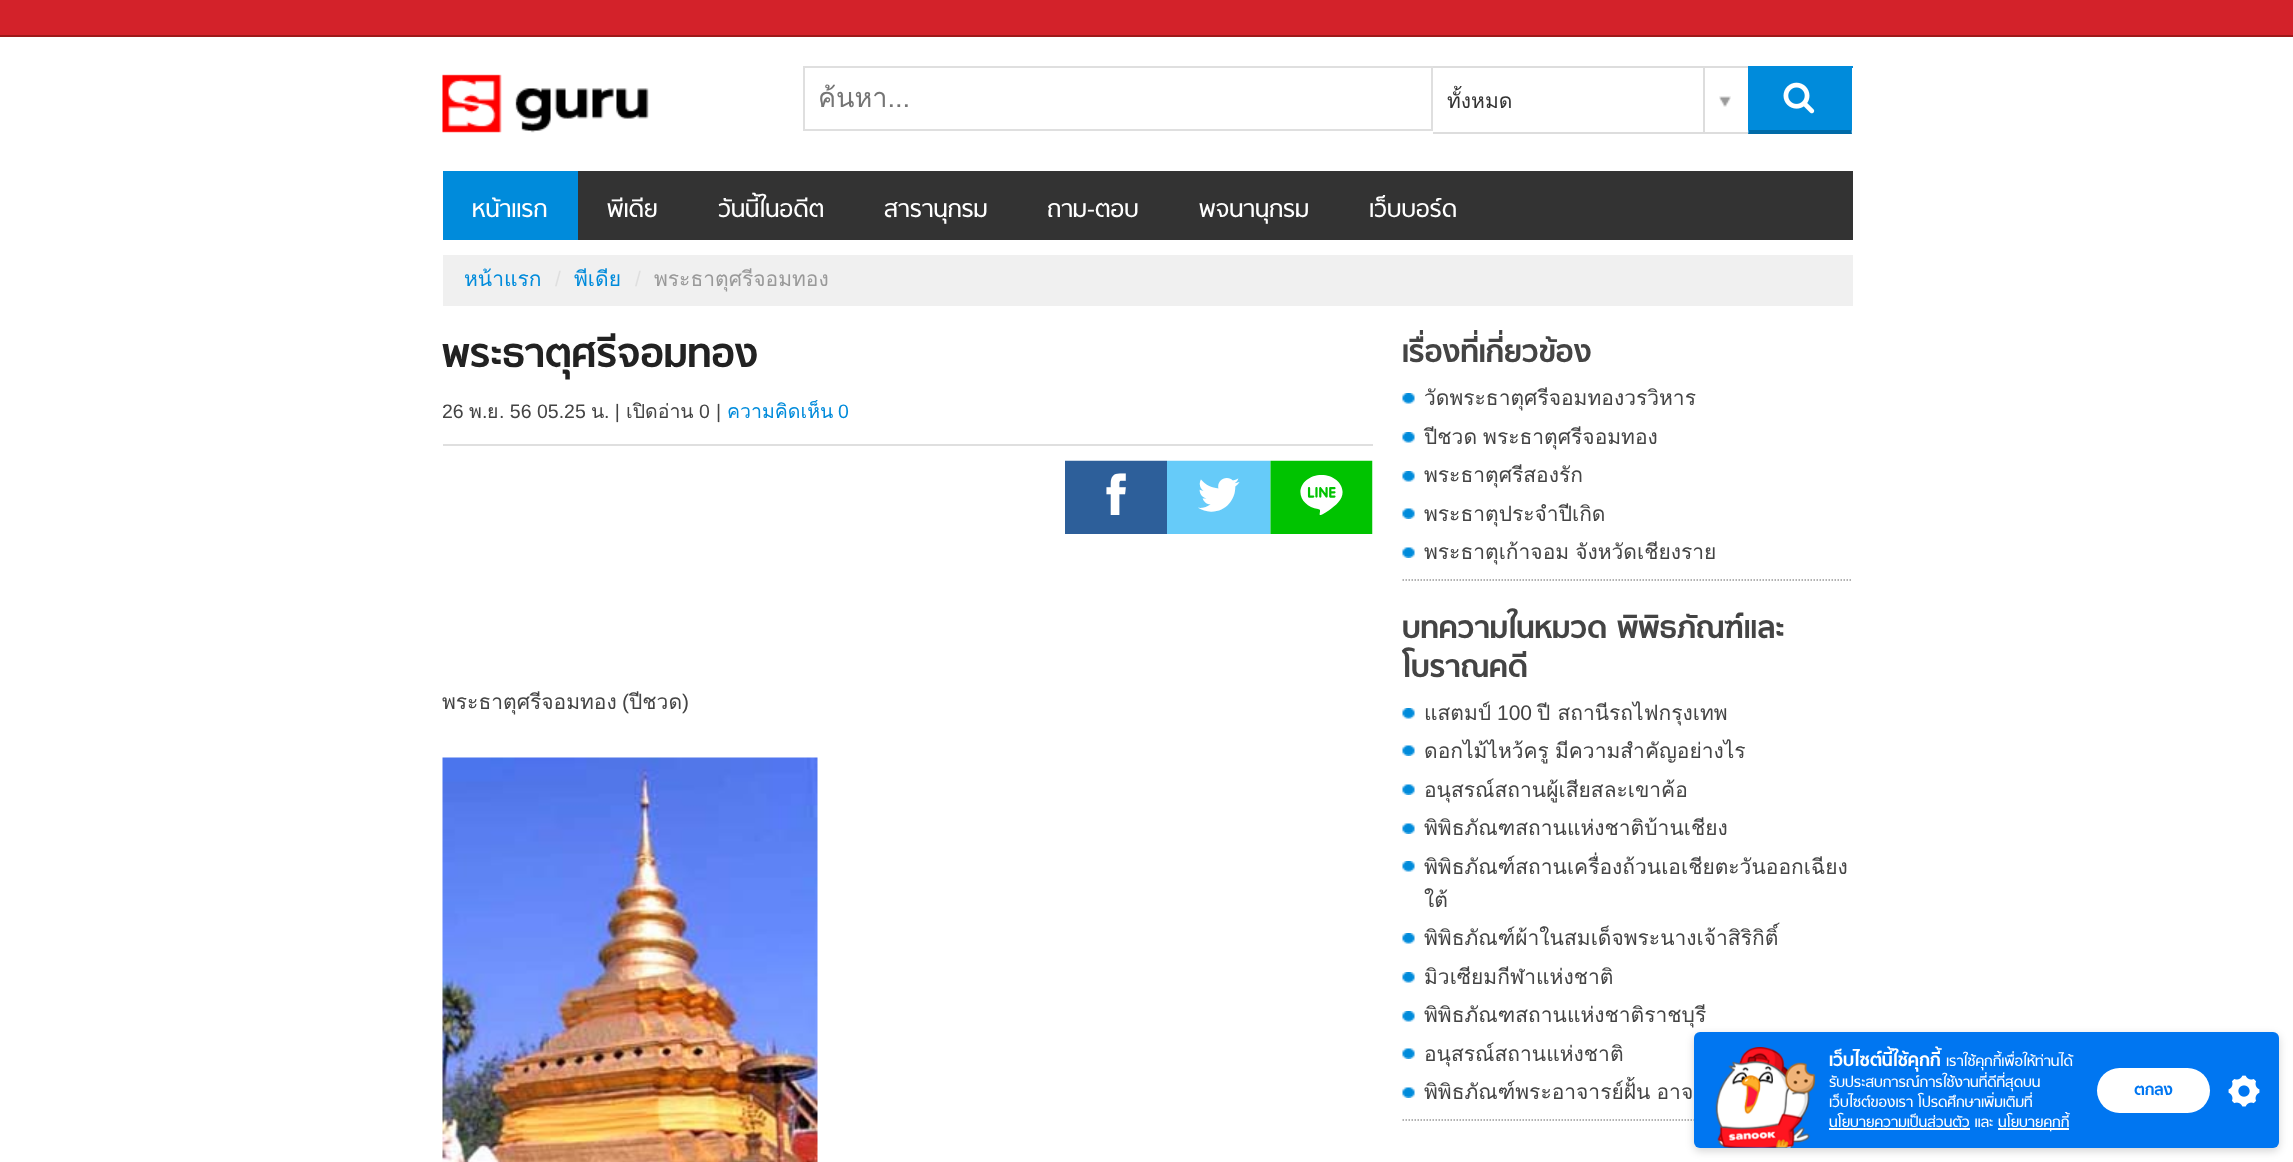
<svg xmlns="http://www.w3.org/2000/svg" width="2293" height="1162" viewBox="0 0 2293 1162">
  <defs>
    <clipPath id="clip1"><path d="M819 75h597v44H819z"/></clipPath>
  </defs>
  <rect width="100%" height="100%" fill="#fff"/>
  <path d="M0 0h2293v35H0z" fill="#d3222a"/>
  <path d="M0 35h2293v2H0z" fill="#9d1919"/>
  <image x="442" y="74" width="207" height="59" href="img/1.png"/>
  <path d="M804 67h628v63H804z" fill="none" stroke="#dfdfdf" stroke-width="2"/>
  <path d="M1433 66h315v2H1433z" fill="#ddd"/>
  <path d="M1433 132h315v2H1433z" fill="#ddd"/>
  <image x="1719" y="96" width="12" height="11" href="img/2.png"/>
  <path d="M1703 68h2v64H1703z" fill="#ddd"/>
  <path d="M1749 68h102v62H1749z" fill="#008bdb"/>
  <path d="M1748 66h105v2H1748z" fill="#008bdb"/>
  <path d="M1852 66V134L1851 130V68Z" fill="#008bdb"/>
  <path d="M1852 134H1748L1749 130H1851Z" fill="#006ba8"/>
  <path d="M1748 134V66L1749 68V130Z" fill="#008bdb"/>
  <image x="1783" y="82" width="32" height="32" href="img/3.png"/>
  <path d="M578 171h1275v69H578z" fill="#333"/>
  <path d="M443 171h135v69H443z" fill="#008bdb"/>
  <path d="M443 255h1410v51H443z" fill="#f0f0f0"/>
  <path d="M443 444h930v2H443z" fill="#dfdfdf"/>
  <image x="1065" y="460" width="308" height="74" href="img/4.png"/>
  <image x="442" y="757" width="376" height="405" href="img/5.png"/>
  <path d="M1402.5 580H1851" fill="none" stroke="#999" stroke-width="1.5" stroke-dasharray="1.5 1.5"/>
  <image x="1402" y="393" width="13" height="11" href="img/6.png"/>
  <image x="1402" y="432" width="13" height="11" href="img/6.png"/>
  <image x="1402" y="471" width="13" height="11" href="img/6.png"/>
  <image x="1402" y="508" width="13" height="11" href="img/7.png"/>
  <image x="1402" y="547" width="13" height="11" href="img/7.png"/>
  <path d="M1402.5 1120H1851" fill="none" stroke="#999" stroke-width="1.5" stroke-dasharray="1.5 1.5"/>
  <image x="1402" y="708" width="13" height="11" href="img/6.png"/>
  <image x="1402" y="745" width="13" height="11" href="img/7.png"/>
  <image x="1402" y="784" width="13" height="11" href="img/7.png"/>
  <image x="1402" y="823" width="13" height="11" href="img/7.png"/>
  <image x="1402" y="861" width="13" height="11" href="img/6.png"/>
  <image x="1402" y="933" width="13" height="11" href="img/6.png"/>
  <image x="1402" y="972" width="13" height="11" href="img/6.png"/>
  <image x="1402" y="1011" width="13" height="11" href="img/6.png"/>
  <image x="1402" y="1048" width="13" height="11" href="img/7.png"/>
  <image x="1402" y="1087" width="13" height="11" href="img/7.png"/>
  <rect x="1694" y="1035" width="585" height="116" rx="6" fill="#0000002b" filter="blur(4.5px)"/>
  <rect x="1694" y="1032" width="585" height="116" rx="6" fill="#0076f1"/>
  <image x="1715" y="1047" width="100" height="101" href="img/8.png"/>
  <path d="M1829 1128h141v2H1829z" fill="#fff"/>
  <path d="M1998 1128h71v2H1998z" fill="#fff"/>
  <rect x="2097" y="1068" width="113" height="45" rx="22.5" fill="#fff"/>
  <image x="2228" y="1075" width="32" height="32" href="img/9.png"/>
  <g clip-path="url(#clip1)">
    <text x="818" y="107" font-family="Loma" font-size="27" fill="#757575">ค้นหา...</text>
  </g>
  <text x="1447" y="108" font-family="Loma" font-size="21" fill="#333">ทั้งหมด</text>
  <g font-family="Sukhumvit" font-size="27" fill="#fff">
    <text x="472" y="217">หน้าแรก</text>
    <text x="607" y="217">พีเดีย</text>
    <text x="718" y="217">วันนี้ในอดีต</text>
    <text x="884" y="217">สารานุกรม</text>
    <text x="1047" y="217">ถาม-ตอบ</text>
    <text x="1199" y="217">พจนานุกรม</text>
    <text x="1369" y="217">เว็บบอร์ด</text>
  </g>
  <text x="464" y="286" font-family="Loma" font-size="21" fill="#008bdb">หน้าแรก</text>
  <text x="555" y="286" font-family="Liberation Sans" font-size="21" fill="#dfdfdf">/</text>
  <text x="574" y="286" font-family="Loma" font-size="21" fill="#008bdb">พีเดีย</text>
  <text x="635" y="286" font-family="Liberation Sans" font-size="21" fill="#dfdfdf">/</text>
  <text x="654" y="286" font-family="Loma" font-size="21" fill="#999">พระธาตุศรีจอมทอง</text>
  <text x="442" y="367" font-family="Sukhumvit" font-size="45" font-weight="bold" fill="#222">พระธาตุศรีจอมทอง</text>
  <text x="442" y="418" font-family="Liberation Sans" font-size="19.5" fill="#444">26</text>
  <text x="469" y="418" font-family="Loma" font-size="19.5" fill="#444">พ</text>
  <text x="482" y="418" font-family="Liberation Sans" font-size="19.5" fill="#444">.</text>
  <text x="487" y="418" font-family="Loma" font-size="19.5" fill="#444">ย</text>
  <text x="499" y="418" font-family="Liberation Sans" font-size="19.5" fill="#444">. 56 05.25</text>
  <text x="591" y="418" font-family="Loma" font-size="19.5" fill="#444">น</text>
  <text x="604" y="418" font-family="Liberation Sans" font-size="19.5" fill="#444">. |</text>
  <text x="626" y="418" font-family="Loma" font-size="19.5" fill="#444">เปิดอ่าน</text>
  <g font-family="Liberation Sans" font-size="19.5" fill="#444">
    <text x="699" y="418">0</text>
    <text x="716" y="418">|</text>
  </g>
  <text x="727" y="418" font-family="Loma" font-size="19.5" fill="#008bdb">ความคิดเห็น</text>
  <text x="838" y="418" font-family="Liberation Sans" font-size="19.5" fill="#008bdb">0</text>
  <text x="442" y="709" font-family="Loma" font-size="21" fill="#444">พระธาตุศรีจอมทอง</text>
  <text x="622" y="709" font-family="Liberation Sans" font-size="21" fill="#444">(</text>
  <text x="629" y="709" font-family="Loma" font-size="21" fill="#444">ปีชวด</text>
  <text x="682" y="709" font-family="Liberation Sans" font-size="21" fill="#444">)</text>
  <text x="1402" y="362" font-family="Sukhumvit" font-size="34.5" font-weight="bold" fill="#444">เรื่องที่เกี่ยวข้อง</text>
  <g font-family="Loma" font-size="21" fill="#444">
    <text x="1424" y="405">วัดพระธาตุศรีจอมทองวรวิหาร</text>
    <text x="1424" y="444" word-spacing="-1">ปีชวด พระธาตุศรีจอมทอง</text>
    <text x="1424" y="482">พระธาตุศรีสองรัก</text>
    <text x="1424" y="521">พระธาตุประจำปีเกิด</text>
    <text x="1424" y="559" word-spacing="-1">พระธาตุเก้าจอม จังหวัดเชียงราย</text>
  </g>
  <g font-family="Sukhumvit" font-size="34.5" font-weight="bold" fill="#444">
    <text x="1402" y="638">บทความในหมวด พิพิธภัณฑ์และ</text>
    <text x="1402" y="677">โบราณคดี</text>
  </g>
  <text x="1424" y="720" font-family="Loma" font-size="21" fill="#444">แสตมป์</text>
  <text x="1497" y="720" font-family="Liberation Sans" font-size="21" fill="#444">100</text>
  <g font-family="Loma" font-size="21" fill="#444">
    <text x="1537" y="720">ปี สถานีรถไฟกรุงเทพ</text>
    <text x="1424" y="758" word-spacing="-1">ดอกไม้ไหว้ครู มีความสำคัญอย่างไร</text>
    <text x="1424" y="797">อนุสรณ์สถานผู้เสียสละเขาค้อ</text>
    <text x="1424" y="835">พิพิธภัณฑสถานแห่งชาติบ้านเชียง</text>
    <text x="1424" y="874">พิพิธภัณฑ์สถานเครื่องถ้วนเอเชียตะวันออกเฉียง</text>
    <text x="1424" y="907">ใต้</text>
    <text x="1424" y="945">พิพิธภัณฑ์ผ้าในสมเด็จพระนางเจ้าสิริกิติ์</text>
    <text x="1424" y="984">มิวเซียมกีฬาแห่งชาติ</text>
    <text x="1424" y="1022">พิพิธภัณฑสถานแห่งชาติราชบุรี</text>
    <text x="1424" y="1061">อนุสรณ์สถานแห่งชาติ</text>
    <text x="1424" y="1099" word-spacing="-1">พิพิธภัณฑ์พระอาจารย์ฝั้น อาจ</text>
  </g>
  <text x="1829" y="1066" font-family="'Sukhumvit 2'" font-size="20.5" font-weight="bold" fill="#fff">เว็บไซต์นี้ใช้คุกกี้</text>
  <g font-family="'Sukhumvit 2'" font-size="16.5" fill="#fff">
    <text x="1946" y="1066">เราใช้คุกกี้เพื่อให้ท่านได้</text>
    <text x="1829" y="1087">รับประสบการณ์การใช้งานที่ดีที่สุดบน</text>
    <text x="1829" y="1107">เว็บไซต์ของเรา โปรดศึกษาเพิ่มเติมที่</text>
    <text x="1829" y="1127">นโยบายความเป็นส่วนตัว และ</text>
    <text x="1998" y="1127">นโยบายคุกกี้</text>
  </g>
  <text x="2134" y="1095" font-family="'Sukhumvit 2'" font-size="18" font-weight="bold" fill="#0076f1">ตกลง</text>
</svg>
